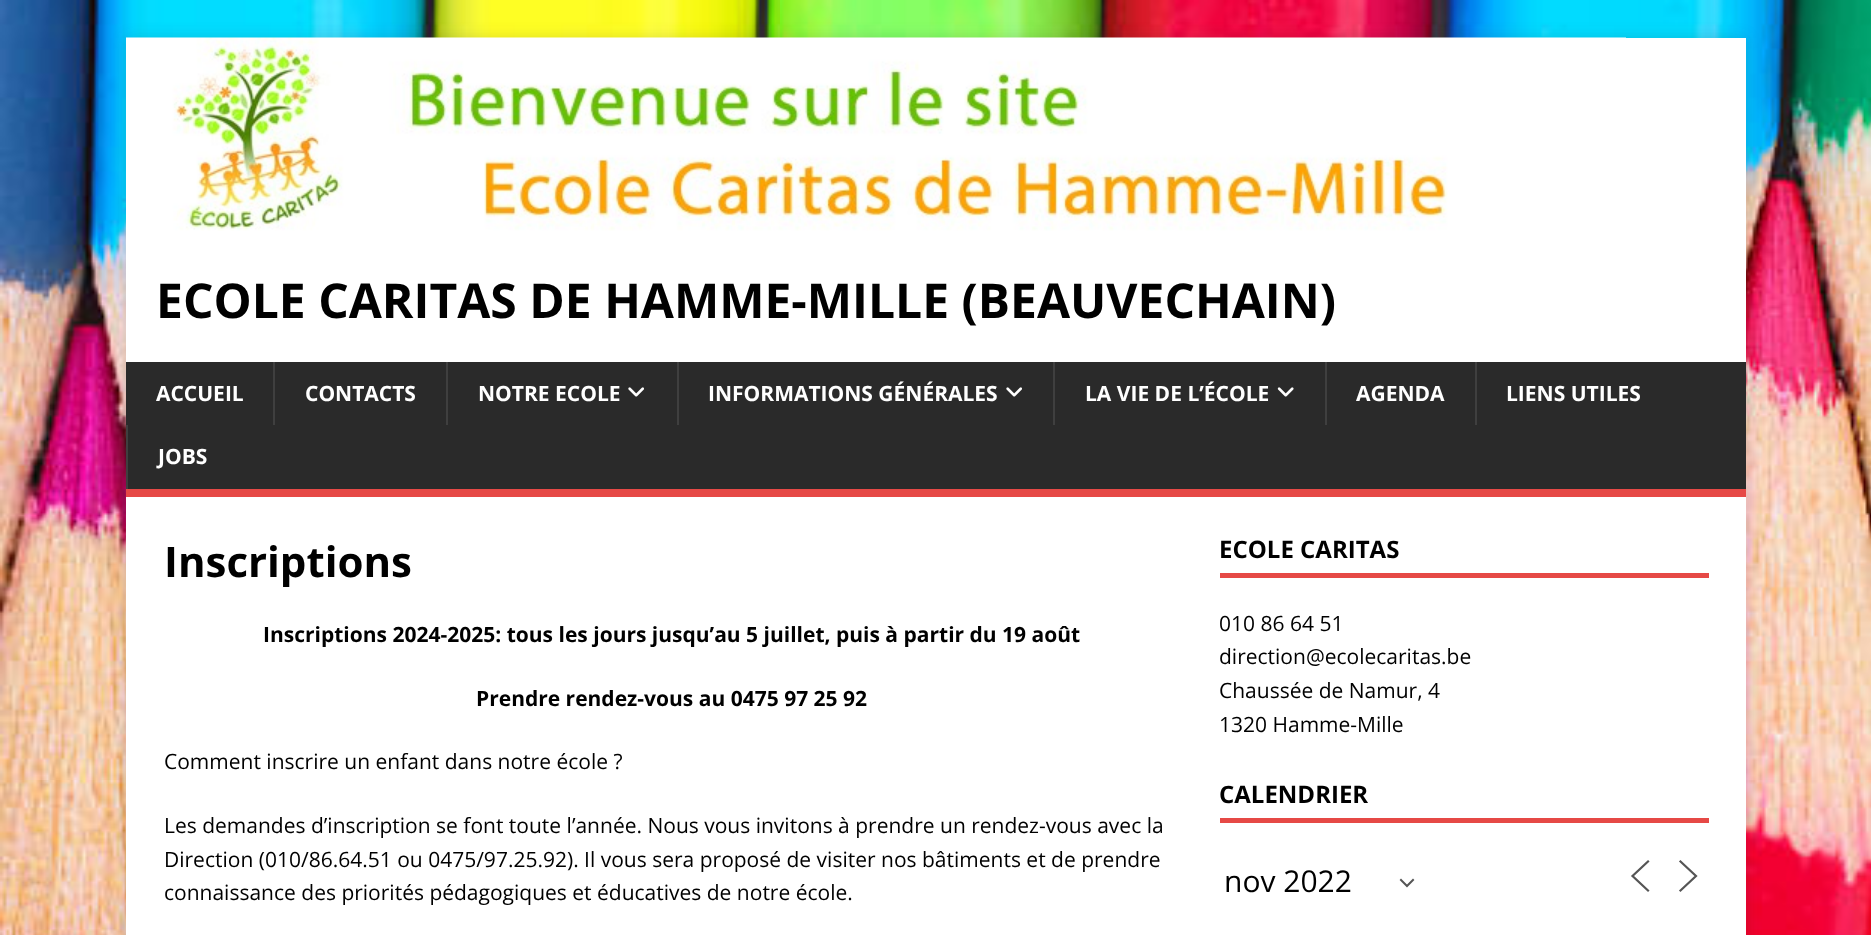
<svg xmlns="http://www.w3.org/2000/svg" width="1871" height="935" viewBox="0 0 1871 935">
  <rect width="100%" height="100%" fill="#fff"/>
  <image x="0" y="0" width="1871" height="935" href="img/1.png"/>
  <path d="M126 38h1620v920H126z" fill="#3232322b" filter="blur(7.5px)"/>
  <path d="M126 38h1620v324H126z" fill="#fff"/>
  <image x="126" y="37" width="1500" height="194" href="img/2.png"/>
  <path d="M126 362h1620v127H126z" fill="#2a2a2a"/>
  <path d="M126 489h1620v8H126z" fill="#e64946"/>
  <path d="M273 362h2v63H273z" fill="#3f3f3f"/>
  <path d="M446 362h2v63H446z" fill="#3f3f3f"/>
  <image x="628" y="387" width="16" height="10" href="img/3.png"/>
  <path d="M677 362h2v63H677z" fill="#3f3f3f"/>
  <image x="1006" y="387" width="16" height="10" href="img/3.png"/>
  <path d="M1053 362h2v63H1053z" fill="#3f3f3f"/>
  <image x="1277" y="387" width="17" height="10" href="img/4.png"/>
  <path d="M1325 362h2v63H1325z" fill="#3f3f3f"/>
  <path d="M1475 362h2v63H1475z" fill="#3f3f3f"/>
  <path d="M126 425h2v64H126z" fill="#3f3f3f"/>
  <path d="M126 497h1620v438H126z" fill="#fff"/>
  <path d="M1220 573h489v5H1220z" fill="#e64946"/>
  <path d="M1220 818h489v5H1220z" fill="#e64946"/>
  <path d="M1401 880L1407 886L1413 880" fill="none" stroke="#555" stroke-width="2" stroke-linecap="square"/>
  <path d="M1648 890.5L1632.5 876L1648 861.5" fill="none" stroke="#555" stroke-width="2.2" stroke-linecap="square"/>
  <path d="M1680.5 890.5L1696 876L1680.5 861.5" fill="none" stroke="#555" stroke-width="2.2" stroke-linecap="square"/>
  <text x="156" y="318" font-family="Open Sans" font-size="48" font-weight="bold" fill="#000">ECOLE CARITAS DE HAMME-MILLE (BEAUVECHAIN)</text>
  <g font-family="Open Sans" font-size="21" font-weight="bold" fill="#fff">
    <text x="156" y="401">ACCUEIL</text>
    <text x="305" y="401">CONTACTS</text>
    <text x="478" y="401">NOTRE ECOLE</text>
    <text x="708" y="401">INFORMATIONS GÉNÉRALES</text>
    <text x="1085" y="401">LA VIE DE L’ÉCOLE</text>
    <text x="1356" y="401">AGENDA</text>
    <text x="1506" y="401">LIENS UTILES</text>
    <text x="158" y="464">JOBS</text>
  </g>
  <text x="164" y="577" font-family="Open Sans" font-size="42" font-weight="bold" fill="#000">Inscriptions</text>
  <g font-family="Open Sans" font-size="21" font-weight="bold" fill="#000">
    <text x="263" y="642">Inscriptions 2024-2025: tous les jours jusqu’au 5 juillet, puis à partir du 19 août</text>
    <text x="476" y="706">Prendre rendez-vous au 0475 97 25 92</text>
  </g>
  <g font-family="Open Sans" font-size="21" fill="#000">
    <text x="164" y="769">Comment inscrire un enfant dans notre école ?</text>
    <text x="164" y="833">Les demandes d’inscription se font toute l’année. Nous vous invitons à prendre un rendez-vous avec la</text>
    <text x="164" y="867">Direction (010/86.64.51 ou 0475/97.25.92). Il vous sera proposé de visiter nos bâtiments et de prendre</text>
    <text x="164" y="900">connaissance des priorités pédagogiques et éducatives de notre école.</text>
  </g>
  <text x="1219" y="558" font-family="Open Sans" font-size="24" font-weight="bold" fill="#000">ECOLE CARITAS</text>
  <g font-family="Open Sans" font-size="21" fill="#000">
    <text x="1219" y="631">010 86 64 51</text>
    <text x="1219" y="664">direction@ecolecaritas.be</text>
    <text x="1219" y="698">Chaussée de Namur, 4</text>
    <text x="1219" y="732">1320 Hamme-Mille</text>
  </g>
  <text x="1219" y="803" font-family="Open Sans" font-size="24" font-weight="bold" fill="#000">CALENDRIER</text>
  <text x="1224" y="892" font-family="Open Sans" font-size="30" fill="#000">nov 2022</text>
</svg>
